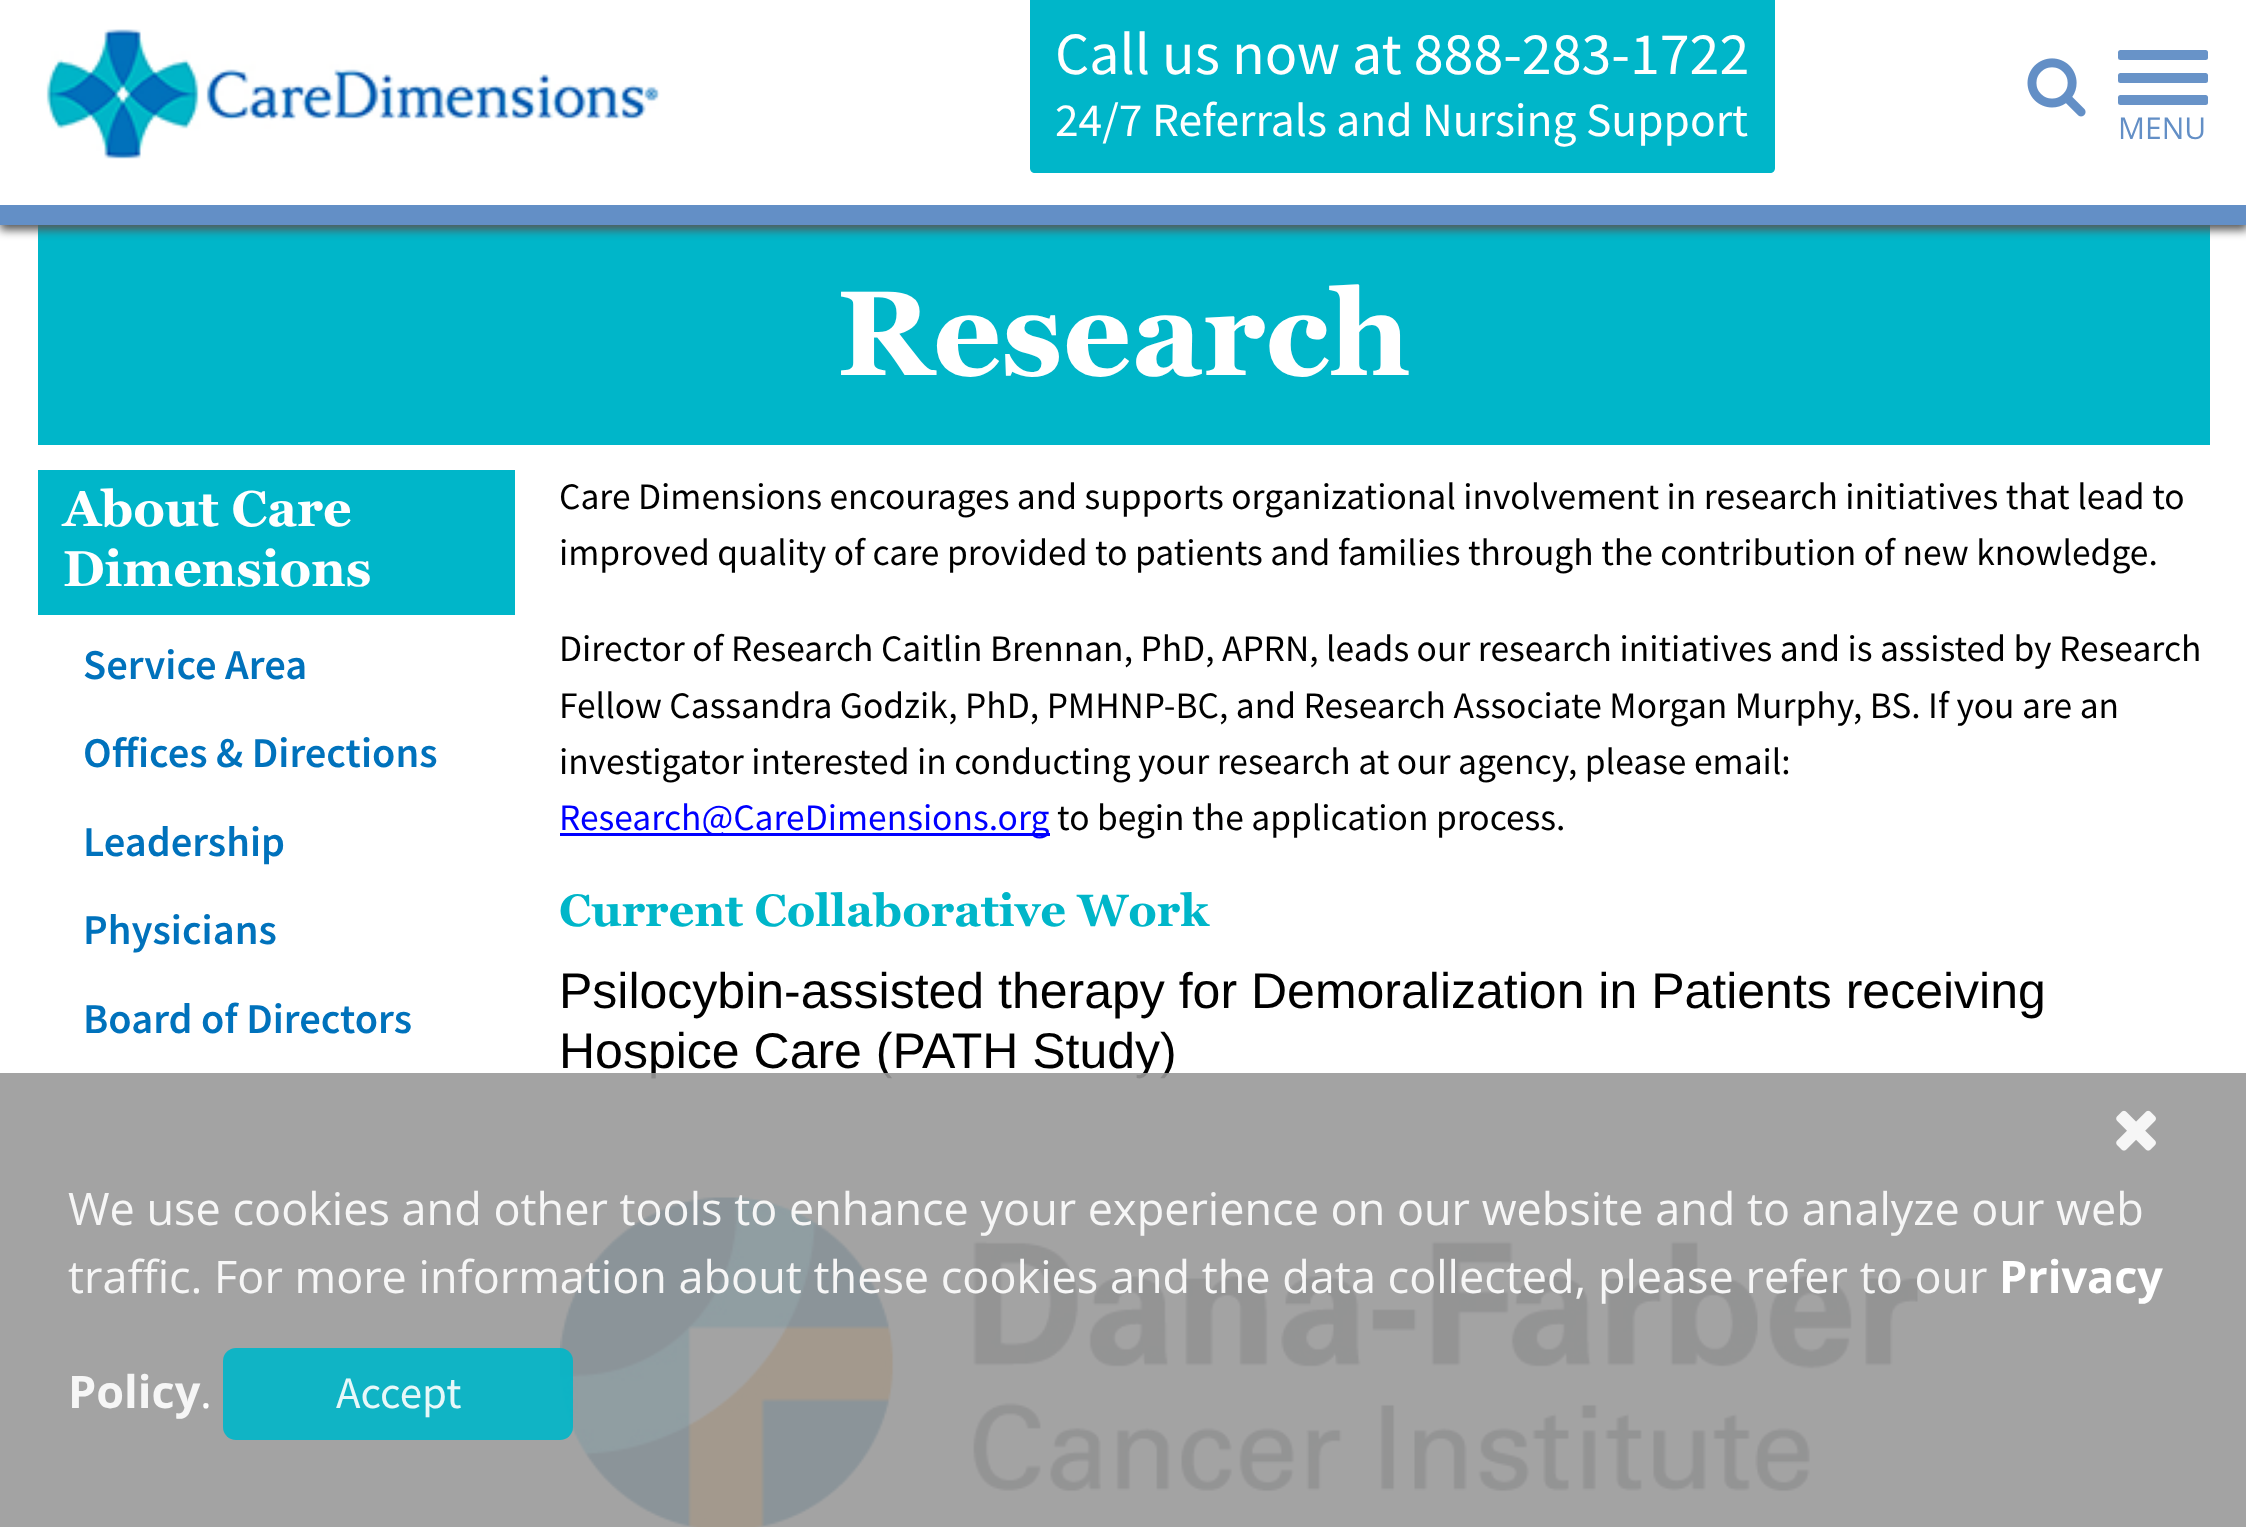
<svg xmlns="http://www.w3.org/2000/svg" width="2246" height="1527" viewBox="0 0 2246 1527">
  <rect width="100%" height="100%" fill="#fff"/>
  <path d="M38 225h2172v220H38z" fill="#00b6c9"/>
  <path d="M0 5h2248v225H0z" fill="#565757" filter="blur(5px)"/>
  <path d="M0 0h2246v205H0z" fill="#fff"/>
  <path d="M0 205h2246v20H0z" fill="#638fc6"/>
  <image x="46" y="29" width="614" height="130" href="img/1.png"/>
  <path d="M1030-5H1775V168C1775 171 1773 173 1770 173H1035C1032 173 1030 171 1030 168Z" fill="#00b6c9"/>
  <rect x="2118" y="50" width="90" height="10" rx="2.5" fill="#6893c8"/>
  <rect x="2118" y="73" width="90" height="10" rx="2.5" fill="#6893c8"/>
  <rect x="2118" y="95" width="90" height="10" rx="2.5" fill="#6893c8"/>
  <image x="2027" y="58" width="59" height="59" href="img/2.png"/>
  <path d="M38 470h477v145H38z" fill="#00b6c9"/>
  <path d="M560 833h490v3H560z" fill="#00f"/>
  <image x="560" y="1197" width="1358" height="330" href="img/3.png"/>
  <text x="1055" y="74" font-family="Source Sans Pro" font-size="60" fill="#fff">Call us now at 888-283-1722</text>
  <text x="1055" y="136" font-family="Source Sans Pro" font-size="47.5" fill="#fff">24/7 Referrals and Nursing Support</text>
  <text x="2118" y="139" font-family="Open Sans" font-size="30" fill="#638fc6">MENU</text>
  <text x="837" y="375" font-family="Georgia" font-size="120" font-weight="bold" fill="#fff">Research</text>
  <g font-family="Georgia" font-size="50" font-weight="bold" fill="#fff">
    <text x="63" y="526">About Care</text>
    <text x="63" y="586">Dimensions</text>
  </g>
  <g font-family="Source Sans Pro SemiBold" font-size="42.5" font-weight="600" fill="#0072bc">
    <text x="83" y="679">Service Area</text>
    <text x="83" y="767">Offices &amp; Directions</text>
    <text x="83" y="856">Leadership</text>
    <text x="83" y="944">Physicians</text>
    <text x="83" y="1033">Board of Directors</text>
  </g>
  <g font-family="Source Sans Pro" font-size="37.5" fill="#000">
    <text x="559" y="509">Care Dimensions encourages and supports organizational involvement in research initiatives that lead to</text>
    <text x="559" y="565">improved quality of care provided to patients and families through the contribution of new knowledge.</text>
    <text x="559" y="661">Director of Research Caitlin Brennan, PhD, APRN, leads our research initiatives and is assisted by Research</text>
    <text x="559" y="718">Fellow Cassandra Godzik, PhD, PMHNP-BC, and Research Associate Morgan Murphy, BS. If you are an</text>
    <text x="559" y="774">investigator interested in conducting your research at our agency, please email:</text>
  </g>
  <text x="559" y="830" font-family="Source Sans Pro" font-size="37.5" fill="#00f">Research@CareDimensions.org</text>
  <text x="1057" y="830" font-family="Source Sans Pro" font-size="37.5" fill="#000">to begin the application process.</text>
  <text x="559" y="926" font-family="Georgia" font-size="45" font-weight="bold" fill="#00b6c9">Current Collaborative Work</text>
  <g font-family="Liberation Sans" font-size="50" fill="#000">
    <text x="559" y="1008">Psilocybin-assisted therapy for Demoralization in Patients receiving</text>
    <text x="559" y="1068">Hospice Care (PATH Study)</text>
  </g>
  <path d="M0 1073h2246v454H0z" fill="#999999e6"/>
  <image x="2116" y="1110" width="40" height="41" href="img/4.png"/>
  <g font-family="Open Sans" font-size="45" fill="#f6f6f6">
    <text x="68" y="1225">We use cookies and other tools to enhance your experience on our website and to analyze our web</text>
    <text x="68" y="1293">traffic. For more information about these cookies and the data collected, please refer to our</text>
  </g>
  <text x="1999" y="1293" font-family="Open Sans" font-size="45" font-weight="bold" fill="#fff">Privacy</text>
  <text x="68" y="1408" font-family="Open Sans" font-size="45" font-weight="bold" fill="#f6f6f6">Policy</text>
  <text x="200" y="1408" font-family="Open Sans" font-size="45" fill="#fff">.</text>
  <rect x="223" y="1348" width="350" height="92" rx="13" fill="#00b6c9e6"/>
  <text x="336" y="1408" font-family="Source Sans Pro" font-size="45" fill="#e7f8f9">Accept</text>
</svg>
